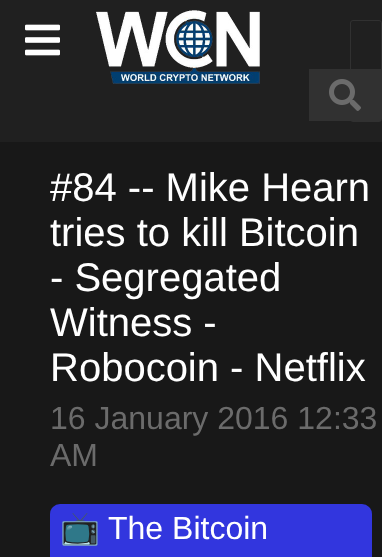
<svg xmlns="http://www.w3.org/2000/svg" width="382" height="557" viewBox="0 0 382 557">
  <rect width="100%" height="100%" fill="#181818"/>
  <path d="M0 0h382v142H0z" fill="#202020"/>
  <image x="25" y="24" width="35" height="32" href="img/1.png"/>
  <image x="96" y="10" width="164" height="74" href="img/2.png"/>
  <rect x="350.5" y="20.5" width="31" height="101" rx="2.5" fill="none" stroke="#313131"/>
  <path d="M309 69h72v52H309z" fill="#313131"/>
  <image x="329" y="79" width="32" height="32" href="img/3.png"/>
  <rect x="50" y="504" width="322" height="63" rx="10" fill="#3236de"/>
  <g font-family="Liberation Sans" font-size="40" fill="#fff">
    <text x="50" y="201">#84 -- Mike Hearn</text>
    <text x="50" y="246">tries to kill Bitcoin</text>
    <text x="50" y="291">- Segregated</text>
    <text x="50" y="336">Witness -</text>
    <text x="50" y="381">Robocoin - Netflix</text>
  </g>
  <g font-family="Liberation Sans" font-size="32" fill="#6b6b6b">
    <text x="50" y="429">16 January 2016 12:33</text>
    <text x="50" y="466">AM</text>
  </g>
  <text x="60" y="539" font-family="Noto Color Emoji" font-size="32" fill="#fff">📺</text>
  <text x="108" y="539" font-family="Liberation Sans" font-size="32" fill="#fff">The Bitcoin</text>
</svg>
